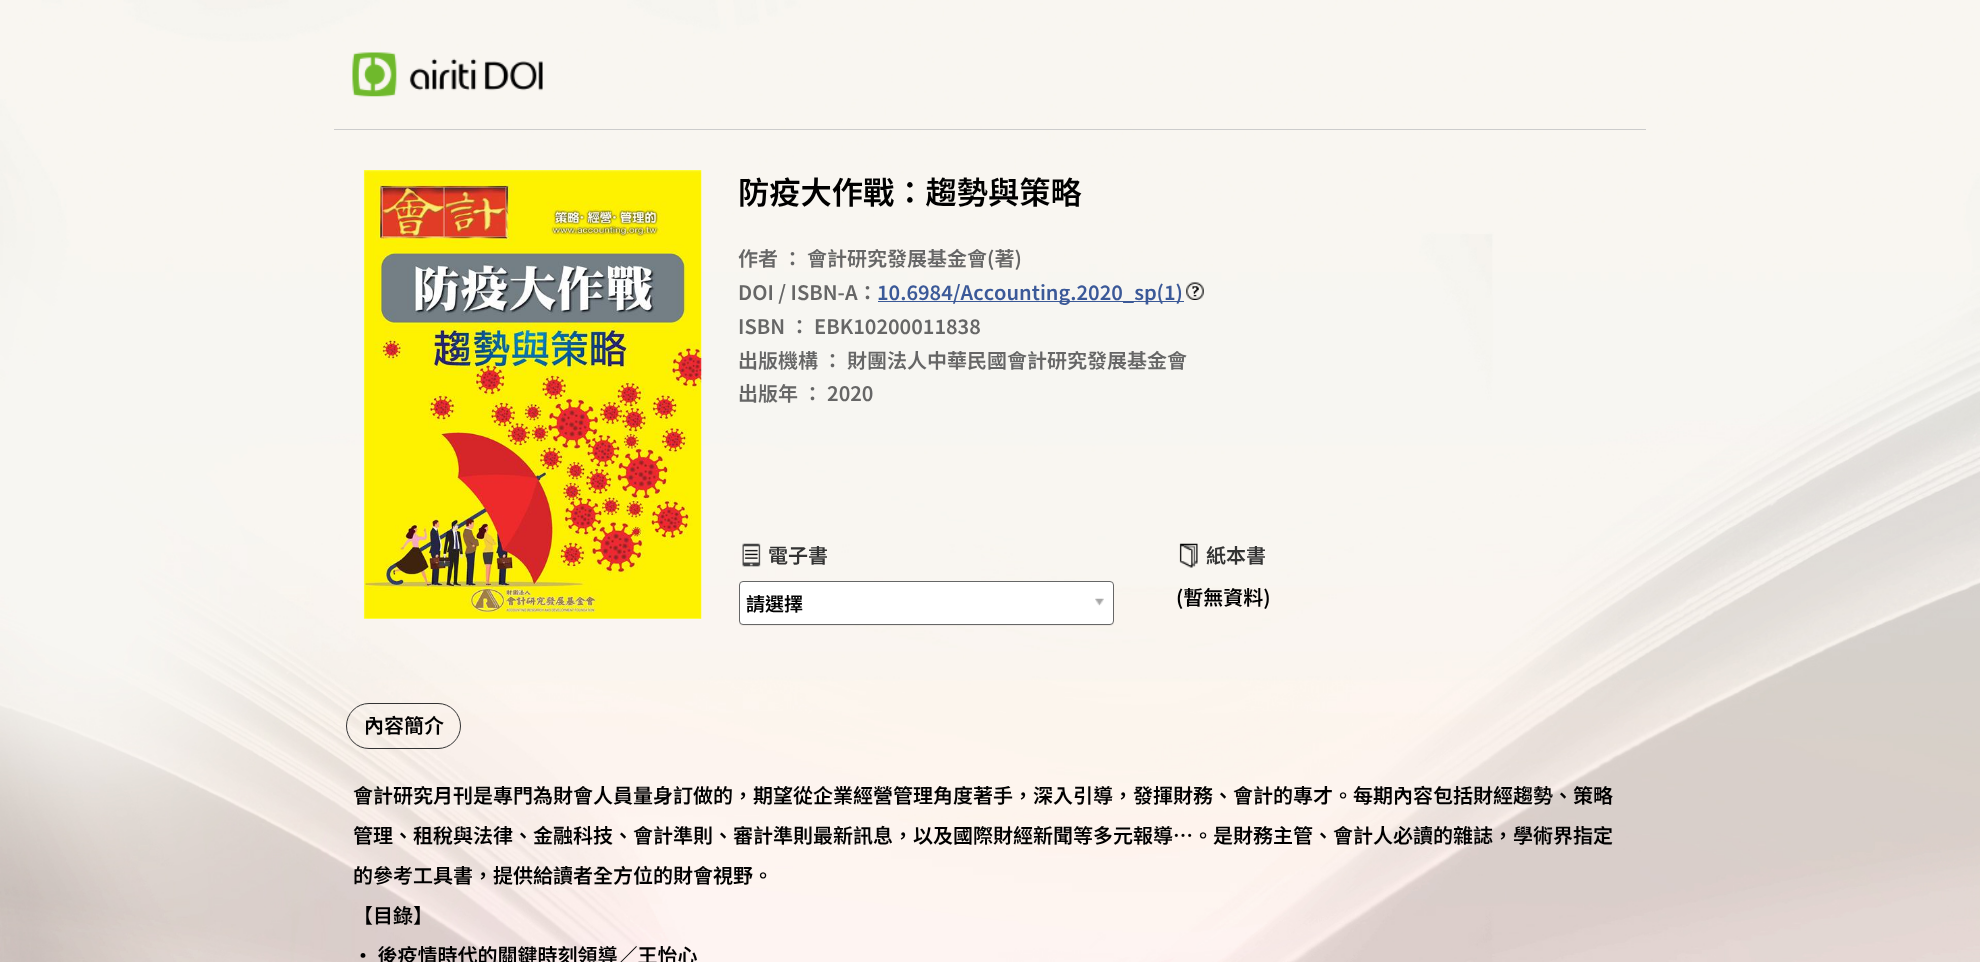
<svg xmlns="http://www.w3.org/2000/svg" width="1980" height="962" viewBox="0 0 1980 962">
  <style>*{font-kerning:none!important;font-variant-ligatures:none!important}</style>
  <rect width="100%" height="100%" fill="#fff"/>
  <image x="0" y="0" width="1980" height="962" href="img/1.png"/>
  <path d="M334 129h1312v1H334z" fill="#ccc"/>
  <image x="352" y="52" width="191" height="45" href="img/2.png"/>
  <image x="363" y="170" width="339" height="449" href="img/3.png"/>
  <path d="M878 301h306v1H878z" fill="#3b5998"/>
  <image x="1186" y="282" width="18" height="18" href="img/4.png"/>
  <image x="742" y="543" width="19" height="24" href="img/5.png"/>
  <rect x="739" y="583" width="375" height="43" rx="4" fill="#0000000d" filter="blur(0.5px)"/>
  <rect x="739.5" y="581.5" width="374" height="43" rx="3.5" fill="#fff" stroke="#666"/>
  <image x="1095" y="598" width="9" height="8" href="img/6.png"/>
  <image x="1179" y="543" width="19" height="25" href="img/7.png"/>
  <rect x="346.5" y="703.5" width="114" height="45" rx="22.5" fill="none" stroke="#333"/>
  <text x="738" y="204" font-family="Noto Sans TC" font-size="31.25" font-weight="600" fill="#000">防疫大作戰：趨勢與策略</text>
  <g font-family="Noto Sans TC" font-size="20" font-weight="600" fill="#666">
    <text x="738" y="266">作者 ： 會計研究發展基金會(著)</text>
    <text x="738" y="300">DOI / ISBN-A：</text>
  </g>
  <text x="877" y="300" font-family="Noto Sans TC" font-size="20" font-weight="600" fill="#3b5998">10.6984/Accounting.2020_sp(1)</text>
  <g font-family="Noto Sans TC" font-size="20" font-weight="600" fill="#666">
    <text x="738" y="334">ISBN ： EBK10200011838</text>
    <text x="738" y="368">出版機構 ： 財團法人中華民國會計研究發展基金會</text>
    <text x="738" y="401">出版年 ： 2020</text>
  </g>
  <text x="768" y="563" font-family="Noto Sans TC" font-size="20" font-weight="600" fill="#333">電子書</text>
  <text x="746" y="611" font-family="Noto Sans TC" font-size="19" font-weight="600" fill="#000">請選擇</text>
  <text x="1206" y="563" font-family="Noto Sans TC" font-size="20" font-weight="600" fill="#333">紙本書</text>
  <g font-family="Noto Sans TC" font-size="20" font-weight="600" fill="#000">
    <text x="1176" y="605">(暫無資料)</text>
    <text x="364" y="733">內容簡介</text>
    <text x="353" y="803">會計研究月刊是專門為財會人員量身訂做的，期望從企業經營管理角度著手，深入引導，發揮財務、會計的專才。每期內容包括財經趨勢、策略</text>
    <text x="353" y="843">管理、租稅與法律、金融科技、會計準則、審計準則最新訊息，以及國際財經新聞等多元報導…。是財務主管、會計人必讀的雜誌，學術界指定</text>
    <text x="353" y="883">的參考工具書，提供給讀者全方位的財會視野。</text>
    <text x="353" y="923">【目錄】</text>
    <text x="353" y="963">• 後疫情時代的關鍵時刻領導／王怡心</text>
  </g>
</svg>
